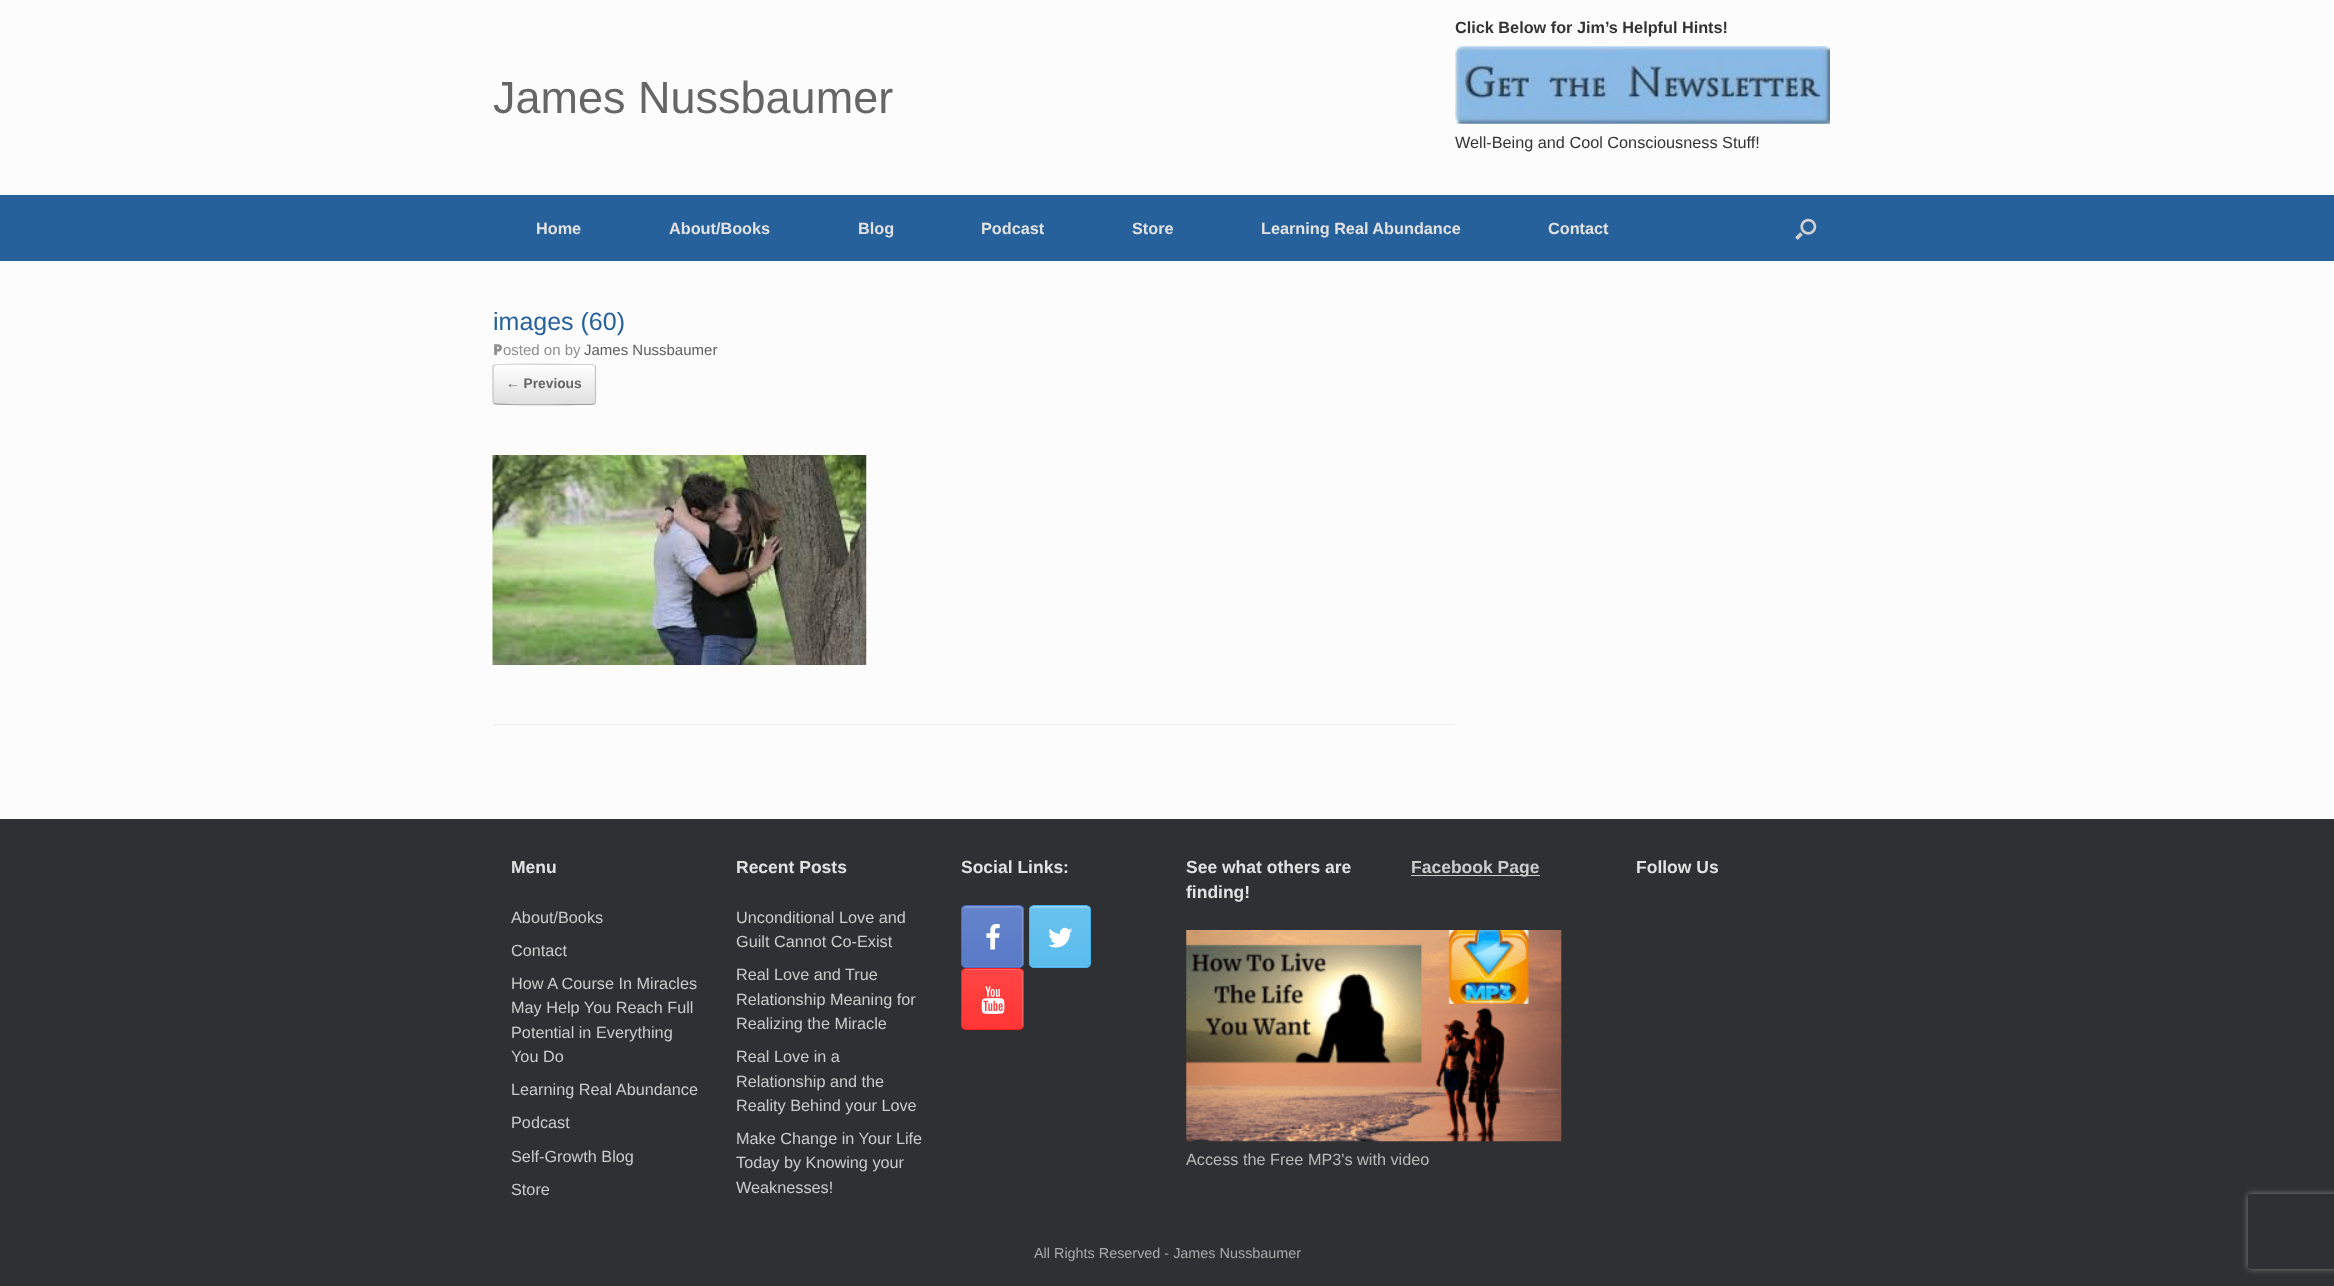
<svg xmlns="http://www.w3.org/2000/svg" width="2334" height="1286" viewBox="0 0 2334 1286">
  <defs>
    <clipPath id="clip1"><rect x="493" y="364" width="103" height="41" rx="4"/></clipPath>
    <linearGradient id="g1" gradientUnits="userSpaceOnUse" x1="494" y1="404" x2="494" y2="365"><stop offset="0" stop-color="#dfdfdf"/><stop offset="1" stop-color="#fff"/></linearGradient>
    <linearGradient id="g2" gradientUnits="userSpaceOnUse" x1="494" y1="443" x2="494" y2="404"><stop offset="0" stop-color="#dfdfdf"/><stop offset="1" stop-color="#fff"/></linearGradient>
    <clipPath id="clip2"><rect x="961" y="905" width="63" height="63" rx="5"/></clipPath>
    <linearGradient id="g3" gradientUnits="userSpaceOnUse" x1="963" y1="966" x2="963" y2="906"><stop offset="0" stop-color="#597ac7"/><stop offset="1" stop-color="#6483cb"/></linearGradient>
    <linearGradient id="g4" gradientUnits="userSpaceOnUse" x1="963" y1="1026" x2="963" y2="966"><stop offset="0" stop-color="#597ac7"/><stop offset="1" stop-color="#6483cb"/></linearGradient>
    <clipPath id="clip3"><rect x="1029" y="905" width="62" height="63" rx="5"/></clipPath>
    <linearGradient id="g5" gradientUnits="userSpaceOnUse" x1="1030" y1="966" x2="1030" y2="906"><stop offset="0" stop-color="#5bbcec"/><stop offset="1" stop-color="#69c2ee"/></linearGradient>
    <linearGradient id="g6" gradientUnits="userSpaceOnUse" x1="1030" y1="1026" x2="1030" y2="966"><stop offset="0" stop-color="#5bbcec"/><stop offset="1" stop-color="#69c2ee"/></linearGradient>
    <clipPath id="clip4"><rect x="961" y="968" width="63" height="62" rx="5"/></clipPath>
    <linearGradient id="g7" gradientUnits="userSpaceOnUse" x1="963" y1="1029" x2="963" y2="969"><stop offset="0" stop-color="#ff3635"/><stop offset="1" stop-color="#ff4544"/></linearGradient>
    <clipPath id="clip5"><path d="M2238 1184H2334V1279H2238ZM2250.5 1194H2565.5C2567 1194 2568 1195 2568 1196.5V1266.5C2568 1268 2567 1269 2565.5 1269H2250.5C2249 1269 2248 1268 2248 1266.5V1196.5C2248 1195 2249 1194 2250.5 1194Z" clip-rule="evenodd"/></clipPath>
  </defs>
  <rect width="100%" height="100%" fill="#2f3033"/>
  <path d="M0 0h2334v195H0z" fill="#fcfcfc"/>
  <image x="1455" y="46" width="375" height="78" href="img/1.png"/>
  <path d="M0 195h2334v66H0z" fill="#26619b"/>
  <image x="1795" y="218" width="22" height="22" href="img/2.png"/>
  <path d="M0 261h2334v558H0z" fill="#fcfcfc"/>
  <path d="M493 724h962v1H493z" fill="#eee"/>
  <g clip-path="url(#clip1)">
    <path d="M493 365h103v39H493z" fill="url(#g1)"/>
    <path d="M493 404h103v1H493z" fill="url(#g2)"/>
  </g>
  <path d="M494 365.5L494.5 365C496.5 363.5 567.5 364.5 576.5 364.5H592.5L594.5 365.5" fill="none" stroke="#d2d2d2" stroke-width="1.2"/>
  <path d="M594.5 365.5C595.5 366 595.5 366.5 595.5 367.5V401C595.5 402 595.5 403 594.5 403.5" fill="none" stroke="#c3c3c3" stroke-width="1.2"/>
  <path d="M594.5 403.5L592.5 404.5H576.5C567.5 404.5 496.5 405.5 494.5 403.5H494" fill="none" stroke="#9f9f9f" stroke-width="1.2"/>
  <path d="M494 403.5C493.5 403 493 402 493 401V367.5C493 366.5 493.5 366 494 365.5" fill="none" stroke="#c3c3c3" stroke-width="1.2"/>
  <image x="492" y="455" width="375" height="210" href="img/3.png"/>
  <g clip-path="url(#clip2)">
    <path d="M961 906h63v60H961z" fill="url(#g3)"/>
    <path d="M961 966h63v2H961z" fill="url(#g4)"/>
  </g>
  <path d="M966 908H1010C1012 908 1022 906 1022 911V965C1023 964 1023 963 1023 962V910C1023 908 1021 906 1019 906H967C965 906 964 907 963 909Z" fill="#ffffff33"/>
  <rect x="961.5" y="905.5" width="62" height="62" rx="4.5" fill="none" stroke="#466bc1"/>
  <image x="986" y="923" width="14" height="27" href="img/4.png"/>
  <g clip-path="url(#clip3)">
    <path d="M1029 906h62v60H1029z" fill="url(#g5)"/>
    <path d="M1029 966h62v2H1029z" fill="url(#g6)"/>
  </g>
  <path d="M1034 908H1086C1088 908 1090 909 1090 911C1090 904 1082 906 1077 906H1043C1038 906 1030 904 1030 911C1030 909 1032 908 1034 908Z" fill="#8ed1f2"/>
  <rect x="1029.5" y="905.5" width="61" height="62" rx="4.5" fill="none" stroke="#44b3e9"/>
  <image x="1048" y="927" width="25" height="21" href="img/5.png"/>
  <g clip-path="url(#clip4)">
    <path d="M961 969h63v60H961z" fill="url(#g7)"/>
  </g>
  <path d="M966 970H1010C1014 970 1022 968 1022 974V1028C1022 1027 1023 1026 1023 1025V973C1023 971 1021 969 1019 969H967C966 969 964 970 964 971Z" fill="#ffffff33"/>
  <rect x="961.5" y="968.5" width="62" height="61" rx="4.5" fill="none" stroke="#ff1d1b"/>
  <image x="981" y="986" width="24" height="28" href="img/6.png"/>
  <image x="1186" y="930" width="376" height="212" href="img/7.png"/>
  <path d="M1411 875h129v1H1411z" fill="#ccc"/>
  <g clip-path="url(#clip5)">
    <rect x="2248" y="1194" width="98" height="75" rx="2.5" fill="#808080" filter="blur(3px)"/>
  </g>
  <text x="493" y="113" font-family="Liberation Sans" font-size="45" fill="#666">James Nussbaumer</text>
  <text x="1455" y="33" font-family="Liberation Sans" font-size="16.25" font-weight="bold" fill="#333">Click Below for Jim’s Helpful Hints!</text>
  <text x="1455" y="148" font-family="Liberation Sans" font-size="16.25" fill="#333">Well-Being and Cool Consciousness Stuff!</text>
  <g font-family="Liberation Sans" font-size="16.25" font-weight="bold" fill="#e2e2e2">
    <text x="536" y="234">Home</text>
    <text x="669" y="234">About/Books</text>
    <text x="858" y="234">Blog</text>
    <text x="981" y="234">Podcast</text>
    <text x="1132" y="234">Store</text>
    <text x="1261" y="234">Learning Real Abundance</text>
    <text x="1548" y="234">Contact</text>
  </g>
  <text x="493" y="330" font-family="Liberation Sans" font-size="25" fill="#26619b">images (60)</text>
  <text x="493" y="355" font-family="Noto Sans" font-size="15" font-weight="900" fill="#8f8f8f">P</text>
  <text x="503" y="355" font-family="Liberation Sans" font-size="15" fill="#8f8f8f">osted on by</text>
  <text x="584" y="355" font-family="Liberation Sans" font-size="15" fill="#5e5e5e">James Nussbaumer</text>
  <text x="506" y="388" font-family="Liberation Sans" font-size="13.75" font-weight="bold" fill="#666">← Previous</text>
  <text x="511" y="873" font-family="Liberation Sans" font-size="17.5" font-weight="bold" fill="#e2e2e2">Menu</text>
  <g font-family="Liberation Sans" font-size="16.25" fill="#ccc">
    <text x="511" y="923">About/Books</text>
    <text x="511" y="956">Contact</text>
    <text x="511" y="989">How A Course In Miracles</text>
    <text x="511" y="1013">May Help You Reach Full</text>
    <text x="511" y="1038">Potential in Everything</text>
    <text x="511" y="1062">You Do</text>
    <text x="511" y="1095">Learning Real Abundance</text>
    <text x="511" y="1128">Podcast</text>
    <text x="511" y="1162">Self-Growth Blog</text>
    <text x="511" y="1195">Store</text>
  </g>
  <text x="736" y="873" font-family="Liberation Sans" font-size="17.5" font-weight="bold" fill="#e2e2e2">Recent Posts</text>
  <g font-family="Liberation Sans" font-size="16.25" fill="#ccc">
    <text x="736" y="923">Unconditional Love and</text>
    <text x="736" y="947">Guilt Cannot Co-Exist</text>
    <text x="736" y="980">Real Love and True</text>
    <text x="736" y="1005">Relationship Meaning for</text>
    <text x="736" y="1029">Realizing the Miracle</text>
    <text x="736" y="1062">Real Love in a</text>
    <text x="736" y="1087">Relationship and the</text>
    <text x="736" y="1111">Reality Behind your Love</text>
    <text x="736" y="1144">Make Change in Your Life</text>
    <text x="736" y="1168">Today by Knowing your</text>
    <text x="736" y="1193">Weaknesses!</text>
  </g>
  <g font-family="Liberation Sans" font-size="17.5" font-weight="bold" fill="#e2e2e2">
    <text x="961" y="873">Social Links:</text>
    <text x="1186" y="873">See what others are</text>
    <text x="1186" y="898">finding!</text>
  </g>
  <text x="1186" y="1165" font-family="Liberation Sans" font-size="16.25" fill="#b9b9b9">Access the Free MP3's with video</text>
  <text x="1411" y="873" font-family="Liberation Sans" font-size="17.5" font-weight="bold" fill="#ccc">Facebook Page</text>
  <text x="1636" y="873" font-family="Liberation Sans" font-size="17.5" font-weight="bold" fill="#e2e2e2">Follow Us</text>
  <text x="1034" y="1258" font-family="Liberation Sans" font-size="14.4" fill="#aaa">All Rights Reserved - James Nussbaumer</text>
</svg>
